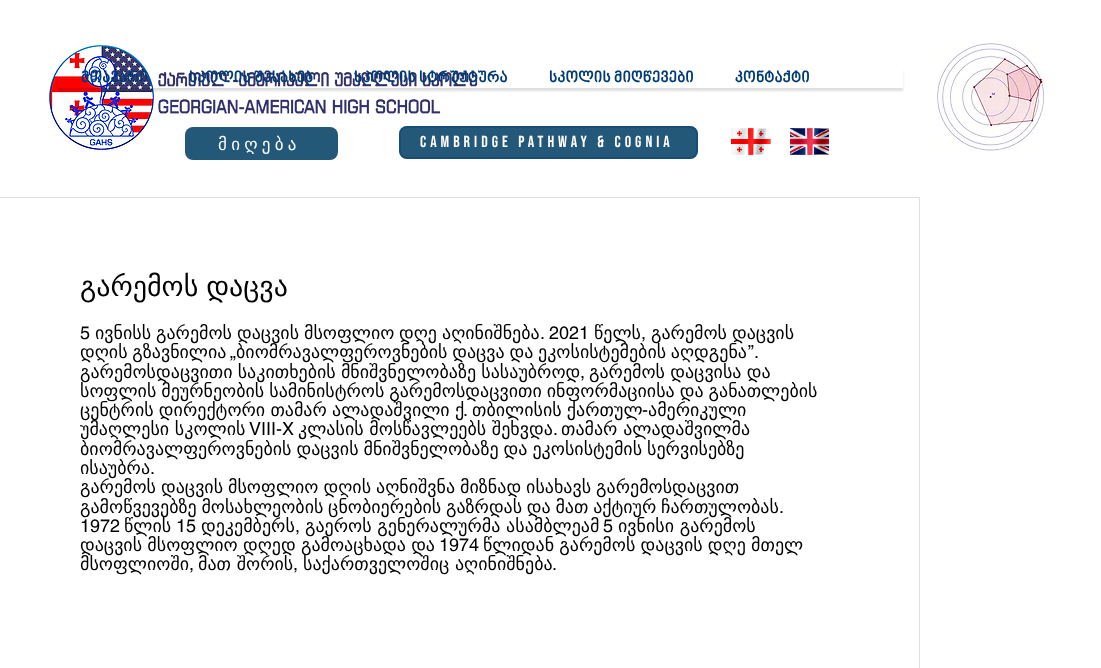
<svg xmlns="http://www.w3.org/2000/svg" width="1101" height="668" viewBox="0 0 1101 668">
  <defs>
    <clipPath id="clip1"><path d="M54 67H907V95H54ZM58 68H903V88H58Z" clip-rule="evenodd"/></clipPath>
  </defs>
  <rect width="100%" height="100%" fill="#fff"/>
  <image x="49" y="45" width="105" height="105" href="img/1.png"/>
  <image x="158" y="72" width="320" height="42" href="img/2.png"/>
  <g clip-path="url(#clip1)">
    <path d="M58 71h845v20H58z" fill="#00000021" filter="blur(1px)"/>
  </g>
  <image x="937" y="43" width="108" height="108" href="img/3.png"/>
  <rect x="185" y="127" width="153" height="33" rx="8" fill="#245879"/>
  <rect x="399" y="126" width="299" height="33" rx="8" fill="#245879"/>
  <rect x="400" y="127" width="297" height="31" rx="7" fill="none" stroke="#093f7c6e" stroke-width="2"/>
  <image x="731" y="128" width="40" height="27" href="img/4.png"/>
  <image x="790" y="128" width="39" height="27" href="img/5.png"/>
  <path d="M-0.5 197.5h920v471H-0.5z" fill="none" stroke="#dfdfdf"/>
  <g font-family="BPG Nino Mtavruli" font-size="16" font-weight="bold" fill="#003b76">
    <text x="81" y="83">მთავარი</text>
    <text x="189" y="83">სკოლის შესახებ</text>
    <text x="354" y="83">სკოლის სტრუქტურა</text>
    <text x="549" y="83">სკოლის მიღწევები</text>
    <text x="735" y="83">კონტაქტი</text>
  </g>
  <text x="218" y="150" font-family="DejaVu Sans" font-size="17" letter-spacing="4.25" fill="#fff">მიღება</text>
  <text x="420" y="147" font-family="Bebas Neue" font-size="16" letter-spacing="4" fill="#fff">Cambridge Pathway &amp; Cognia</text>
  <text x="80" y="296" word-spacing="-1" font-family="DejaVu Sans" font-size="28" fill="#000">გარემოს დაცვა</text>
  <text x="80" y="339" font-family="helvetica" font-size="18" fill="#000">5</text>
  <g font-family="DejaVu Sans" font-size="18" fill="#000">
    <text x="95" y="339">ივნისს</text>
    <text x="156" y="339">გარემოს</text>
    <text x="237" y="339">დაცვის</text>
    <text x="304" y="339">მსოფლიო</text>
    <text x="399" y="339">დღე</text>
    <text x="442" y="339">აღინიშნება</text>
  </g>
  <text x="540" y="339" font-family="helvetica" font-size="18" fill="#000">. 2021</text>
  <text x="594" y="339" font-family="DejaVu Sans" font-size="18" fill="#000">წელს</text>
  <text x="641" y="339" font-family="helvetica" font-size="18" fill="#000">,</text>
  <g font-family="DejaVu Sans" font-size="18" fill="#000">
    <text x="651" y="339">გარემოს</text>
    <text x="732" y="339">დაცვის</text>
    <text x="80" y="358" word-spacing="-1">დღის გზავნილია</text>
    <text x="236" y="358" word-spacing="-1">ბიომრავალფეროვნების დაცვა და ეკოსისტემების აღდგენა</text>
  </g>
  <g font-family="helvetica" font-size="18" fill="#000">
    <text x="748" y="358">”.</text>
    <text x="230" y="358">„</text>
  </g>
  <text x="80" y="378" word-spacing="-0.5" font-family="DejaVu Sans" font-size="18" fill="#000">გარემოსდაცვითი საკითხების მნიშვნელობაზე სასაუბროდ</text>
  <text x="580" y="378" font-family="helvetica" font-size="18" fill="#000">,</text>
  <g font-family="DejaVu Sans" font-size="18" fill="#000">
    <text x="589" y="378" word-spacing="-0.5">გარემოს დაცვისა და</text>
    <text x="80" y="397" word-spacing="-0.75">სოფლის მეურნეობის სამინისტროს გარემოსდაცვითი ინფორმაციისა და განათლების</text>
    <text x="80" y="416" word-spacing="-0.5">ცენტრის დირექტორი თამარ ალადაშვილი ქ</text>
    <text x="472" y="416" word-spacing="-0.5">თბილისის ქართულ</text>
  </g>
  <text x="642" y="416" font-family="helvetica" font-size="18" fill="#000">-</text>
  <text x="648" y="416" font-family="DejaVu Sans" font-size="18" fill="#000">ამერიკული</text>
  <text x="463" y="416" font-family="helvetica" font-size="18" fill="#000">.</text>
  <text x="80" y="435" font-family="DejaVu Sans" font-size="18" fill="#000">უმაღლესი სკოლის</text>
  <text x="249" y="435" font-family="helvetica" font-size="18" fill="#000">VIII-X</text>
  <text x="298" y="435" font-family="DejaVu Sans" font-size="18" fill="#000">კლასის მოსწავლეებს შეხვდა</text>
  <text x="553" y="435" font-family="helvetica" font-size="18" fill="#000">.</text>
  <g font-family="DejaVu Sans" font-size="18" fill="#000">
    <text x="561" y="435">თამარ ალადაშვილმა</text>
    <text x="80" y="455" word-spacing="-0.75">ბიომრავალფეროვნების დაცვის მნიშვნელობაზე და ეკოსისტემის სერვისებზე</text>
    <text x="80" y="474">ისაუბრა</text>
  </g>
  <text x="150" y="474" font-family="helvetica" font-size="18" fill="#000">.</text>
  <g font-family="DejaVu Sans" font-size="18" fill="#000">
    <text x="80" y="493" word-spacing="-0.75">გარემოს დაცვის მსოფლიო დღის აღნიშვნა მიზნად ისახავს გარემოსდაცვით</text>
    <text x="80" y="513" word-spacing="-1">გამოწვევებზე მოსახლეობის ცნობიერების გაზრდას და მათ აქტიურ ჩართულობას</text>
  </g>
  <g font-family="helvetica" font-size="18" fill="#000">
    <text x="779" y="513">.</text>
    <text x="80" y="532">1972</text>
  </g>
  <text x="124" y="532" font-family="DejaVu Sans" font-size="18" fill="#000">წლის</text>
  <text x="176" y="532" font-family="helvetica" font-size="18" fill="#000">15</text>
  <text x="201" y="532" font-family="DejaVu Sans" font-size="18" fill="#000">დეკემბერს</text>
  <text x="295" y="532" font-family="helvetica" font-size="18" fill="#000">,</text>
  <text x="305" y="532" font-family="DejaVu Sans" font-size="18" fill="#000">გაეროს გენერალურმა ასამბლეამ</text>
  <text x="603" y="532" font-family="helvetica" font-size="18" fill="#000">5</text>
  <g font-family="DejaVu Sans" font-size="18" fill="#000">
    <text x="618" y="532">ივნისი გარემოს</text>
    <text x="80" y="551" word-spacing="-0.5">დაცვის მსოფლიო დღედ გამოაცხადა და</text>
  </g>
  <text x="439" y="551" font-family="helvetica" font-size="18" fill="#000">1974</text>
  <g font-family="DejaVu Sans" font-size="18" fill="#000">
    <text x="483" y="551" word-spacing="-0.5">წლიდან გარემოს დაცვის დღე მთელ</text>
    <text x="80" y="570">მსოფლიოში</text>
  </g>
  <text x="189" y="570" font-family="helvetica" font-size="18" fill="#000">,</text>
  <text x="198" y="570" font-family="DejaVu Sans" font-size="18" fill="#000">მათ შორის</text>
  <text x="293" y="570" font-family="helvetica" font-size="18" fill="#000">,</text>
  <text x="303" y="570" font-family="DejaVu Sans" font-size="18" fill="#000">საქართველოშიც აღინიშნება</text>
  <text x="552" y="570" font-family="helvetica" font-size="18" fill="#000">.</text>
</svg>
